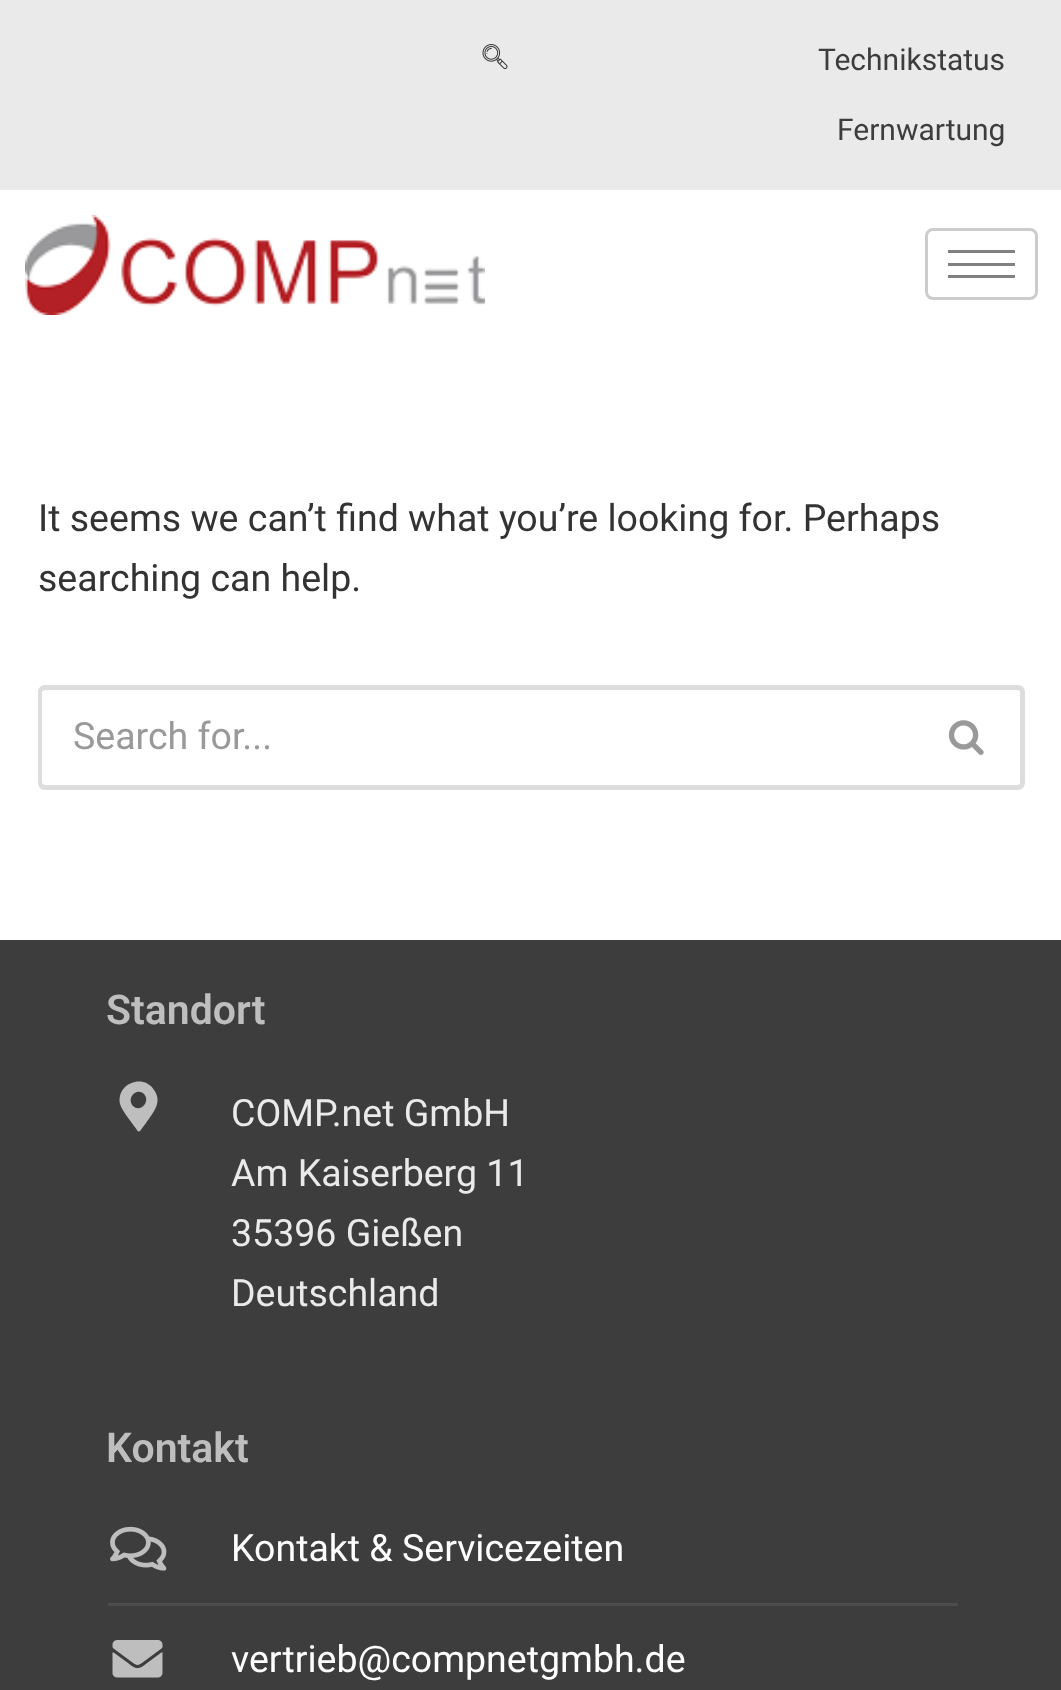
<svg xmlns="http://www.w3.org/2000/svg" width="1061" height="1690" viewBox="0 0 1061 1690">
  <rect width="100%" height="100%" fill="#fff"/>
  <path d="M0 0h1061v190H0z" fill="#eaeaea"/>
  <image x="482" y="44" width="26" height="25" href="img/1.png"/>
  <image x="25" y="215" width="460" height="100" href="img/2.png"/>
  <rect x="926.5" y="229.5" width="110" height="69" rx="6.5" fill="none" stroke="#ccc" stroke-width="3"/>
  <path d="M948 250h67v3H948z" fill="#808080"/>
  <path d="M948 263h67v3H948z" fill="#808080"/>
  <path d="M948 275h67v3H948z" fill="#808080"/>
  <path d="M45 685H912V790H45C41 790 38 787 38 782V692C38 688 41 685 45 685ZM45 690H912V785H45C44 785 42 784 42 782V692C42 691 44 690 45 690Z" fill="#ddd" fill-rule="evenodd"/>
  <path d="M912 685H1018C1022 685 1025 688 1025 692V782C1025 787 1022 790 1018 790H912ZM912 690H1018C1019 690 1020 691 1020 692V782C1020 784 1019 785 1018 785H912Z" fill="#ddd" fill-rule="evenodd"/>
  <image x="948" y="720" width="36" height="35" href="img/3.png"/>
  <path d="M0 940h1061v750H0z" fill="#3d3d3d"/>
  <path d="M137 1130C133 1124 122 1111 120 1104C116 1084 143 1073 154 1090C163 1102 153 1113 146 1123L140 1131C139 1132 137 1131 137 1130ZM133 1106C140 1113 151 1102 144 1094C137 1087 126 1098 133 1106Z" fill="#bebebe"/>
  <image x="110" y="1526" width="57" height="45" href="img/4.png"/>
  <path d="M108 1603h850v3H108z" fill="#4c4c4c"/>
  <image x="112" y="1640" width="51" height="38" href="img/5.png"/>
  <g font-family="Roboto" font-size="30" fill="#3d3d3d">
    <text x="818" y="70">Technikstatus</text>
    <text x="837" y="140">Fernwartung</text>
  </g>
  <g font-family="Roboto" font-size="37.5" fill="#333">
    <text x="38" y="531">It seems we can’t find what you’re looking for. Perhaps</text>
    <text x="38" y="591">searching can help.</text>
  </g>
  <text x="73" y="749" font-family="Roboto" font-size="37.5" fill="#999">Search for...</text>
  <text x="106" y="1024" font-family="Roboto" font-size="41" font-weight="600" fill="#bebebe">Standort</text>
  <g font-family="Roboto" font-size="37.5" fill="#eaeaea">
    <text x="231" y="1126">COMP.net GmbH</text>
    <text x="231" y="1186">Am Kaiserberg 11</text>
    <text x="231" y="1246">35396 Gießen</text>
    <text x="231" y="1306">Deutschland</text>
  </g>
  <text x="106" y="1462" font-family="Roboto" font-size="41" font-weight="600" fill="#bebebe">Kontakt</text>
  <g font-family="Roboto" font-size="37.5" fill="#fff">
    <text x="231" y="1561">Kontakt &amp; Servicezeiten</text>
    <text x="231" y="1672">vertrieb@compnetgmbh.de</text>
  </g>
</svg>
